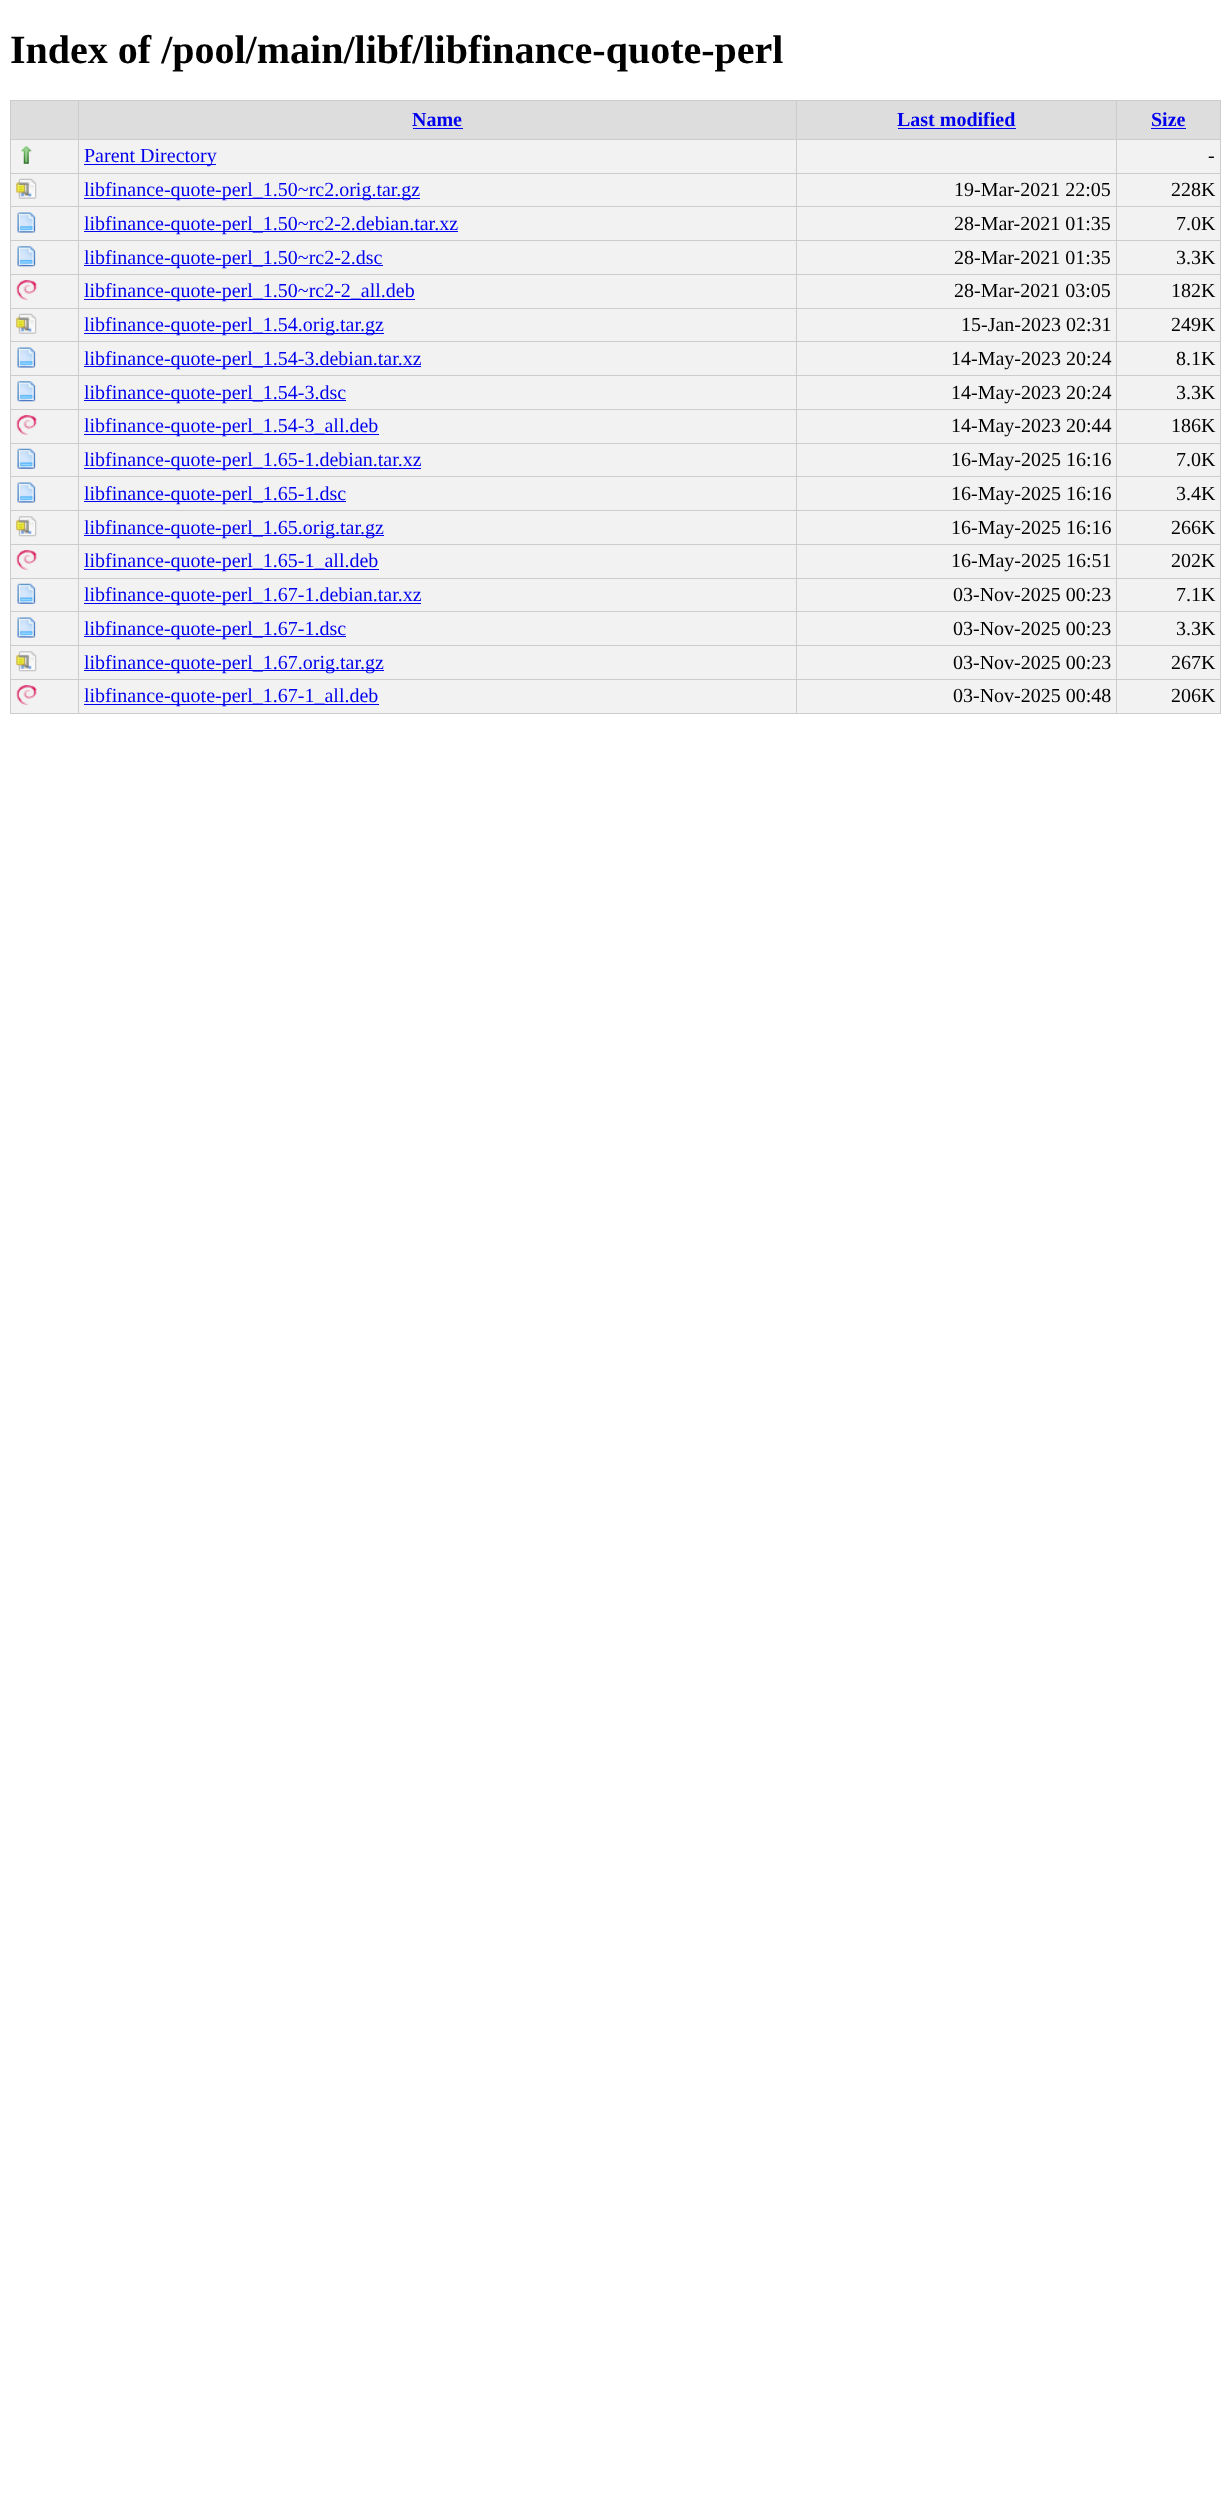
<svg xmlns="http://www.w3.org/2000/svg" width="1231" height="2514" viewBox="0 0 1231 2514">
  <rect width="100%" height="100%" fill="#fff"/>
  <path d="M11 101h67v38H11z" fill="#ddd"/>
  <path d="M1116 100h105v1H1116z" fill="#ccc"/>
  <path d="M1116 139h105v1H1116z" fill="#ccc"/>
  <path d="M11 140h1209v33H11z" fill="#f2f2f2"/>
  <path d="M1116 173h105v1H1116z" fill="#ccc"/>
  <path d="M11 174h1209v32H11z" fill="#f2f2f2"/>
  <path d="M11 207h1209v33H11z" fill="#f2f2f2"/>
  <path d="M1116 206h105v1H1116z" fill="#ccc"/>
  <path d="M1116 240h105v1H1116z" fill="#ccc"/>
  <path d="M11 241h1209v33H11z" fill="#f2f2f2"/>
  <path d="M1116 274h105v1H1116z" fill="#ccc"/>
  <path d="M11 275h1209v33H11z" fill="#f2f2f2"/>
  <path d="M1116 308h105v1H1116z" fill="#ccc"/>
  <path d="M11 309h1209v32H11z" fill="#f2f2f2"/>
  <path d="M11 342h1209v33H11z" fill="#f2f2f2"/>
  <path d="M1116 341h105v1H1116z" fill="#ccc"/>
  <path d="M1116 375h105v1H1116z" fill="#ccc"/>
  <path d="M11 376h1209v33H11z" fill="#f2f2f2"/>
  <path d="M1116 409h105v1H1116z" fill="#ccc"/>
  <path d="M11 410h1209v33H11z" fill="#f2f2f2"/>
  <path d="M1116 443h105v1H1116z" fill="#ccc"/>
  <path d="M11 444h1209v32H11z" fill="#f2f2f2"/>
  <path d="M11 477h1209v33H11z" fill="#f2f2f2"/>
  <path d="M1116 476h105v1H1116z" fill="#ccc"/>
  <path d="M1116 510h105v1H1116z" fill="#ccc"/>
  <path d="M11 511h1209v33H11z" fill="#f2f2f2"/>
  <path d="M1116 544h105v1H1116z" fill="#ccc"/>
  <path d="M11 545h1209v33H11z" fill="#f2f2f2"/>
  <path d="M1116 578h105v1H1116z" fill="#ccc"/>
  <path d="M11 579h1209v32H11z" fill="#f2f2f2"/>
  <path d="M11 612h1209v33H11z" fill="#f2f2f2"/>
  <path d="M1116 611h105v1H1116z" fill="#ccc"/>
  <path d="M1116 645h105v1H1116z" fill="#ccc"/>
  <path d="M11 646h1209v33H11z" fill="#f2f2f2"/>
  <path d="M1116 679h105v1H1116z" fill="#ccc"/>
  <path d="M11 680h1209v33H11z" fill="#f2f2f2"/>
  <path d="M1220 679h1v35H1220z" fill="#ccc"/>
  <path d="M1116 713h105v1H1116z" fill="#ccc"/>
  <path d="M1116 679h1v35H1116z" fill="#ccc"/>
  <path d="M796 679h322v1H796z" fill="#ccc"/>
  <path d="M1116 645h1v35H1116z" fill="#ccc"/>
  <path d="M796 645h322v1H796z" fill="#ccc"/>
  <path d="M1116 611h1v35H1116z" fill="#ccc"/>
  <path d="M796 611h322v1H796z" fill="#ccc"/>
  <path d="M1116 578h1v35H1116z" fill="#ccc"/>
  <path d="M796 578h322v1H796z" fill="#ccc"/>
  <path d="M1116 544h1v35H1116z" fill="#ccc"/>
  <path d="M796 544h322v1H796z" fill="#ccc"/>
  <path d="M1116 510h1v35H1116z" fill="#ccc"/>
  <path d="M796 510h322v1H796z" fill="#ccc"/>
  <path d="M1116 476h1v35H1116z" fill="#ccc"/>
  <path d="M796 476h322v1H796z" fill="#ccc"/>
  <path d="M1116 443h1v35H1116z" fill="#ccc"/>
  <path d="M796 443h322v1H796z" fill="#ccc"/>
  <path d="M1116 409h1v35H1116z" fill="#ccc"/>
  <path d="M796 409h322v1H796z" fill="#ccc"/>
  <path d="M1116 375h1v35H1116z" fill="#ccc"/>
  <path d="M796 375h322v1H796z" fill="#ccc"/>
  <path d="M1116 341h1v35H1116z" fill="#ccc"/>
  <path d="M796 341h322v1H796z" fill="#ccc"/>
  <path d="M1116 308h1v35H1116z" fill="#ccc"/>
  <path d="M796 308h322v1H796z" fill="#ccc"/>
  <path d="M1116 274h1v35H1116z" fill="#ccc"/>
  <path d="M796 274h322v1H796z" fill="#ccc"/>
  <path d="M1116 240h1v35H1116z" fill="#ccc"/>
  <path d="M796 240h322v1H796z" fill="#ccc"/>
  <path d="M1116 206h1v35H1116z" fill="#ccc"/>
  <path d="M796 206h322v1H796z" fill="#ccc"/>
  <path d="M1116 173h1v35H1116z" fill="#ccc"/>
  <path d="M796 173h322v1H796z" fill="#ccc"/>
  <path d="M1116 139h1v35H1116z" fill="#ccc"/>
  <path d="M796 139h322v1H796z" fill="#ccc"/>
  <path d="M1116 100h1v40H1116z" fill="#ccc"/>
  <path d="M796 100h322v1H796z" fill="#ccc"/>
  <path d="M796 713h322v1H796z" fill="#ccc"/>
  <path d="M796 679h1v35H796z" fill="#ccc"/>
  <path d="M78 679h720v1H78z" fill="#ccc"/>
  <path d="M796 645h1v35H796z" fill="#ccc"/>
  <path d="M78 645h720v1H78z" fill="#ccc"/>
  <path d="M796 611h1v35H796z" fill="#ccc"/>
  <path d="M78 611h720v1H78z" fill="#ccc"/>
  <path d="M796 578h1v35H796z" fill="#ccc"/>
  <path d="M78 578h720v1H78z" fill="#ccc"/>
  <path d="M796 544h1v35H796z" fill="#ccc"/>
  <path d="M78 544h720v1H78z" fill="#ccc"/>
  <path d="M796 510h1v35H796z" fill="#ccc"/>
  <path d="M78 510h720v1H78z" fill="#ccc"/>
  <path d="M796 476h1v35H796z" fill="#ccc"/>
  <path d="M78 476h720v1H78z" fill="#ccc"/>
  <path d="M796 443h1v35H796z" fill="#ccc"/>
  <path d="M78 443h720v1H78z" fill="#ccc"/>
  <path d="M796 409h1v35H796z" fill="#ccc"/>
  <path d="M78 409h720v1H78z" fill="#ccc"/>
  <path d="M796 375h1v35H796z" fill="#ccc"/>
  <path d="M78 375h720v1H78z" fill="#ccc"/>
  <path d="M796 341h1v35H796z" fill="#ccc"/>
  <path d="M78 341h720v1H78z" fill="#ccc"/>
  <path d="M796 308h1v35H796z" fill="#ccc"/>
  <path d="M78 308h720v1H78z" fill="#ccc"/>
  <path d="M796 274h1v35H796z" fill="#ccc"/>
  <path d="M78 274h720v1H78z" fill="#ccc"/>
  <path d="M796 240h1v35H796z" fill="#ccc"/>
  <path d="M78 240h720v1H78z" fill="#ccc"/>
  <path d="M796 206h1v35H796z" fill="#ccc"/>
  <path d="M78 206h720v1H78z" fill="#ccc"/>
  <path d="M796 173h1v35H796z" fill="#ccc"/>
  <path d="M78 173h720v1H78z" fill="#ccc"/>
  <path d="M796 139h1v35H796z" fill="#ccc"/>
  <path d="M78 139h720v1H78z" fill="#ccc"/>
  <path d="M796 100h1v40H796z" fill="#ccc"/>
  <path d="M78 100h720v1H78z" fill="#ccc"/>
  <path d="M78 713h720v1H78z" fill="#ccc"/>
  <path d="M78 679h1v35H78z" fill="#ccc"/>
  <path d="M10 679h69v1H10z" fill="#ccc"/>
  <path d="M78 645h1v35H78z" fill="#ccc"/>
  <path d="M10 645h69v1H10z" fill="#ccc"/>
  <path d="M78 611h1v35H78z" fill="#ccc"/>
  <path d="M10 611h69v1H10z" fill="#ccc"/>
  <path d="M78 578h1v35H78z" fill="#ccc"/>
  <path d="M10 578h69v1H10z" fill="#ccc"/>
  <path d="M78 544h1v35H78z" fill="#ccc"/>
  <path d="M10 544h69v1H10z" fill="#ccc"/>
  <path d="M78 510h1v35H78z" fill="#ccc"/>
  <path d="M10 510h69v1H10z" fill="#ccc"/>
  <path d="M78 476h1v35H78z" fill="#ccc"/>
  <path d="M10 476h69v1H10z" fill="#ccc"/>
  <path d="M78 443h1v35H78z" fill="#ccc"/>
  <path d="M10 443h69v1H10z" fill="#ccc"/>
  <path d="M78 409h1v35H78z" fill="#ccc"/>
  <path d="M10 409h69v1H10z" fill="#ccc"/>
  <path d="M78 375h1v35H78z" fill="#ccc"/>
  <path d="M10 375h69v1H10z" fill="#ccc"/>
  <path d="M78 341h1v35H78z" fill="#ccc"/>
  <path d="M10 341h69v1H10z" fill="#ccc"/>
  <path d="M78 308h1v35H78z" fill="#ccc"/>
  <path d="M10 308h69v1H10z" fill="#ccc"/>
  <path d="M78 274h1v35H78z" fill="#ccc"/>
  <path d="M10 274h69v1H10z" fill="#ccc"/>
  <path d="M78 240h1v35H78z" fill="#ccc"/>
  <path d="M10 240h69v1H10z" fill="#ccc"/>
  <path d="M78 206h1v35H78z" fill="#ccc"/>
  <path d="M10 206h69v1H10z" fill="#ccc"/>
  <path d="M78 173h1v35H78z" fill="#ccc"/>
  <path d="M10 173h69v1H10z" fill="#ccc"/>
  <path d="M78 139h1v35H78z" fill="#ccc"/>
  <path d="M10 139h69v1H10z" fill="#ccc"/>
  <path d="M78 100h1v40H78z" fill="#ccc"/>
  <path d="M10 100h69v1H10z" fill="#ccc"/>
  <path d="M10 713h69v1H10z" fill="#ccc"/>
  <path d="M10 679h1v35H10z" fill="#ccc"/>
  <path d="M10 645h1v35H10z" fill="#ccc"/>
  <path d="M10 611h1v35H10z" fill="#ccc"/>
  <path d="M10 578h1v35H10z" fill="#ccc"/>
  <path d="M10 544h1v35H10z" fill="#ccc"/>
  <path d="M10 510h1v35H10z" fill="#ccc"/>
  <path d="M10 476h1v35H10z" fill="#ccc"/>
  <path d="M10 443h1v35H10z" fill="#ccc"/>
  <path d="M10 409h1v35H10z" fill="#ccc"/>
  <path d="M10 375h1v35H10z" fill="#ccc"/>
  <path d="M10 341h1v35H10z" fill="#ccc"/>
  <path d="M10 308h1v35H10z" fill="#ccc"/>
  <path d="M10 274h1v35H10z" fill="#ccc"/>
  <path d="M10 240h1v35H10z" fill="#ccc"/>
  <path d="M10 206h1v35H10z" fill="#ccc"/>
  <path d="M10 173h1v35H10z" fill="#ccc"/>
  <path d="M10 139h1v35H10z" fill="#ccc"/>
  <path d="M10 100h1v40H10z" fill="#ccc"/>
  <path d="M79 101h717v38H79z" fill="#ddd"/>
  <path d="M413 128h50v1H413z" fill="#00e"/>
  <path d="M797 101h319v38H797z" fill="#ddd"/>
  <path d="M898 128h118v1H898z" fill="#00e"/>
  <path d="M1117 101h103v38H1117z" fill="#ddd"/>
  <path d="M1220 645h1v35H1220z" fill="#ccc"/>
  <path d="M1220 611h1v35H1220z" fill="#ccc"/>
  <path d="M1220 578h1v35H1220z" fill="#ccc"/>
  <path d="M1220 544h1v35H1220z" fill="#ccc"/>
  <path d="M1220 510h1v35H1220z" fill="#ccc"/>
  <path d="M1220 476h1v35H1220z" fill="#ccc"/>
  <path d="M1220 443h1v35H1220z" fill="#ccc"/>
  <path d="M1220 409h1v35H1220z" fill="#ccc"/>
  <path d="M1220 375h1v35H1220z" fill="#ccc"/>
  <path d="M1220 341h1v35H1220z" fill="#ccc"/>
  <path d="M1220 308h1v35H1220z" fill="#ccc"/>
  <path d="M1220 274h1v35H1220z" fill="#ccc"/>
  <path d="M1220 240h1v35H1220z" fill="#ccc"/>
  <path d="M1220 206h1v35H1220z" fill="#ccc"/>
  <path d="M1220 173h1v35H1220z" fill="#ccc"/>
  <path d="M1220 139h1v35H1220z" fill="#ccc"/>
  <path d="M1220 100h1v40H1220z" fill="#ccc"/>
  <path d="M1151 128h35v1H1151z" fill="#00e"/>
  <image x="21" y="146" width="11" height="18" href="img/1.png"/>
  <path d="M84 164h132v1H84z" fill="#00e"/>
  <image x="16" y="178" width="21" height="21" href="img/2.png"/>
  <path d="M84 198h336v1H84z" fill="#00e"/>
  <image x="17" y="212" width="19" height="21" href="img/3.png"/>
  <path d="M84 231h374v1H84z" fill="#00e"/>
  <image x="17" y="246" width="19" height="21" href="img/4.png"/>
  <path d="M84 265h299v1H84z" fill="#00e"/>
  <image x="16" y="280" width="21" height="20" href="img/5.png"/>
  <path d="M84 299h331v1H84z" fill="#00e"/>
  <image x="16" y="313" width="21" height="21" href="img/2.png"/>
  <path d="M84 333h300v1H84z" fill="#00e"/>
  <image x="17" y="347" width="19" height="21" href="img/3.png"/>
  <path d="M84 366h337v1H84z" fill="#00e"/>
  <image x="17" y="381" width="19" height="21" href="img/4.png"/>
  <path d="M84 400h262v1H84z" fill="#00e"/>
  <image x="16" y="415" width="21" height="20" href="img/6.png"/>
  <path d="M84 434h295v1H84z" fill="#00e"/>
  <image x="17" y="448" width="19" height="21" href="img/7.png"/>
  <path d="M84 468h337v1H84z" fill="#00e"/>
  <image x="17" y="482" width="19" height="21" href="img/3.png"/>
  <path d="M84 501h262v1H84z" fill="#00e"/>
  <image x="16" y="516" width="21" height="21" href="img/8.png"/>
  <path d="M84 535h300v1H84z" fill="#00e"/>
  <image x="16" y="550" width="21" height="20" href="img/6.png"/>
  <path d="M84 569h295v1H84z" fill="#00e"/>
  <image x="17" y="583" width="19" height="21" href="img/9.png"/>
  <path d="M84 603h337v1H84z" fill="#00e"/>
  <image x="17" y="617" width="19" height="21" href="img/3.png"/>
  <path d="M84 636h262v1H84z" fill="#00e"/>
  <image x="16" y="651" width="21" height="21" href="img/8.png"/>
  <path d="M84 670h300v1H84z" fill="#00e"/>
  <image x="16" y="685" width="21" height="20" href="img/6.png"/>
  <path d="M84 704h295v1H84z" fill="#00e"/>
  <text x="10" y="63" font-family="Liberation Serif" font-size="40" font-weight="bold" fill="#000">Index of /pool/main/libf/libfinance-quote-perl</text>
  <g font-family="Liberation Serif" font-size="20" font-weight="bold" fill="#00e">
    <text x="412" y="126">Name</text>
    <text x="897" y="126">Last modified</text>
    <text x="1151" y="126">Size</text>
  </g>
  <text x="84" y="162" font-family="Liberation Serif" font-size="20" fill="#00e">Parent Directory</text>
  <text x="1208" y="162" font-family="Liberation Serif" font-size="20" fill="#000">-</text>
  <text x="84" y="196" font-family="Liberation Serif" font-size="20" fill="#00e">libfinance-quote-perl_1.50~rc2.orig.tar.gz</text>
  <g font-family="Liberation Serif" font-size="20" fill="#000">
    <text x="954" y="196">19-Mar-2021 22:05</text>
    <text x="1171" y="196">228K</text>
  </g>
  <text x="84" y="230" font-family="Liberation Serif" font-size="20" fill="#00e">libfinance-quote-perl_1.50~rc2-2.debian.tar.xz</text>
  <g font-family="Liberation Serif" font-size="20" fill="#000">
    <text x="954" y="230">28-Mar-2021 01:35</text>
    <text x="1176" y="230">7.0K</text>
  </g>
  <text x="84" y="264" font-family="Liberation Serif" font-size="20" fill="#00e">libfinance-quote-perl_1.50~rc2-2.dsc</text>
  <g font-family="Liberation Serif" font-size="20" fill="#000">
    <text x="954" y="264">28-Mar-2021 01:35</text>
    <text x="1176" y="264">3.3K</text>
  </g>
  <text x="84" y="297" font-family="Liberation Serif" font-size="20" fill="#00e">libfinance-quote-perl_1.50~rc2-2_all.deb</text>
  <g font-family="Liberation Serif" font-size="20" fill="#000">
    <text x="954" y="297">28-Mar-2021 03:05</text>
    <text x="1171" y="297">182K</text>
  </g>
  <text x="84" y="331" font-family="Liberation Serif" font-size="20" fill="#00e">libfinance-quote-perl_1.54.orig.tar.gz</text>
  <g font-family="Liberation Serif" font-size="20" fill="#000">
    <text x="961" y="331">15-Jan-2023 02:31</text>
    <text x="1171" y="331">249K</text>
  </g>
  <text x="84" y="365" font-family="Liberation Serif" font-size="20" fill="#00e">libfinance-quote-perl_1.54-3.debian.tar.xz</text>
  <g font-family="Liberation Serif" font-size="20" fill="#000">
    <text x="951" y="365">14-May-2023 20:24</text>
    <text x="1176" y="365">8.1K</text>
  </g>
  <text x="84" y="399" font-family="Liberation Serif" font-size="20" fill="#00e">libfinance-quote-perl_1.54-3.dsc</text>
  <g font-family="Liberation Serif" font-size="20" fill="#000">
    <text x="951" y="399">14-May-2023 20:24</text>
    <text x="1176" y="399">3.3K</text>
  </g>
  <text x="84" y="432" font-family="Liberation Serif" font-size="20" fill="#00e">libfinance-quote-perl_1.54-3_all.deb</text>
  <g font-family="Liberation Serif" font-size="20" fill="#000">
    <text x="951" y="432">14-May-2023 20:44</text>
    <text x="1171" y="432">186K</text>
  </g>
  <text x="84" y="466" font-family="Liberation Serif" font-size="20" fill="#00e">libfinance-quote-perl_1.65-1.debian.tar.xz</text>
  <g font-family="Liberation Serif" font-size="20" fill="#000">
    <text x="951" y="466">16-May-2025 16:16</text>
    <text x="1176" y="466">7.0K</text>
  </g>
  <text x="84" y="500" font-family="Liberation Serif" font-size="20" fill="#00e">libfinance-quote-perl_1.65-1.dsc</text>
  <g font-family="Liberation Serif" font-size="20" fill="#000">
    <text x="951" y="500">16-May-2025 16:16</text>
    <text x="1176" y="500">3.4K</text>
  </g>
  <text x="84" y="534" font-family="Liberation Serif" font-size="20" fill="#00e">libfinance-quote-perl_1.65.orig.tar.gz</text>
  <g font-family="Liberation Serif" font-size="20" fill="#000">
    <text x="951" y="534">16-May-2025 16:16</text>
    <text x="1171" y="534">266K</text>
  </g>
  <text x="84" y="567" font-family="Liberation Serif" font-size="20" fill="#00e">libfinance-quote-perl_1.65-1_all.deb</text>
  <g font-family="Liberation Serif" font-size="20" fill="#000">
    <text x="951" y="567">16-May-2025 16:51</text>
    <text x="1171" y="567">202K</text>
  </g>
  <text x="84" y="601" font-family="Liberation Serif" font-size="20" fill="#00e">libfinance-quote-perl_1.67-1.debian.tar.xz</text>
  <g font-family="Liberation Serif" font-size="20" fill="#000">
    <text x="953" y="601">03-Nov-2025 00:23</text>
    <text x="1176" y="601">7.1K</text>
  </g>
  <text x="84" y="635" font-family="Liberation Serif" font-size="20" fill="#00e">libfinance-quote-perl_1.67-1.dsc</text>
  <g font-family="Liberation Serif" font-size="20" fill="#000">
    <text x="953" y="635">03-Nov-2025 00:23</text>
    <text x="1176" y="635">3.3K</text>
  </g>
  <text x="84" y="669" font-family="Liberation Serif" font-size="20" fill="#00e">libfinance-quote-perl_1.67.orig.tar.gz</text>
  <g font-family="Liberation Serif" font-size="20" fill="#000">
    <text x="953" y="669">03-Nov-2025 00:23</text>
    <text x="1171" y="669">267K</text>
  </g>
  <text x="84" y="702" font-family="Liberation Serif" font-size="20" fill="#00e">libfinance-quote-perl_1.67-1_all.deb</text>
  <g font-family="Liberation Serif" font-size="20" fill="#000">
    <text x="953" y="702">03-Nov-2025 00:48</text>
    <text x="1171" y="702">206K</text>
  </g>
</svg>
